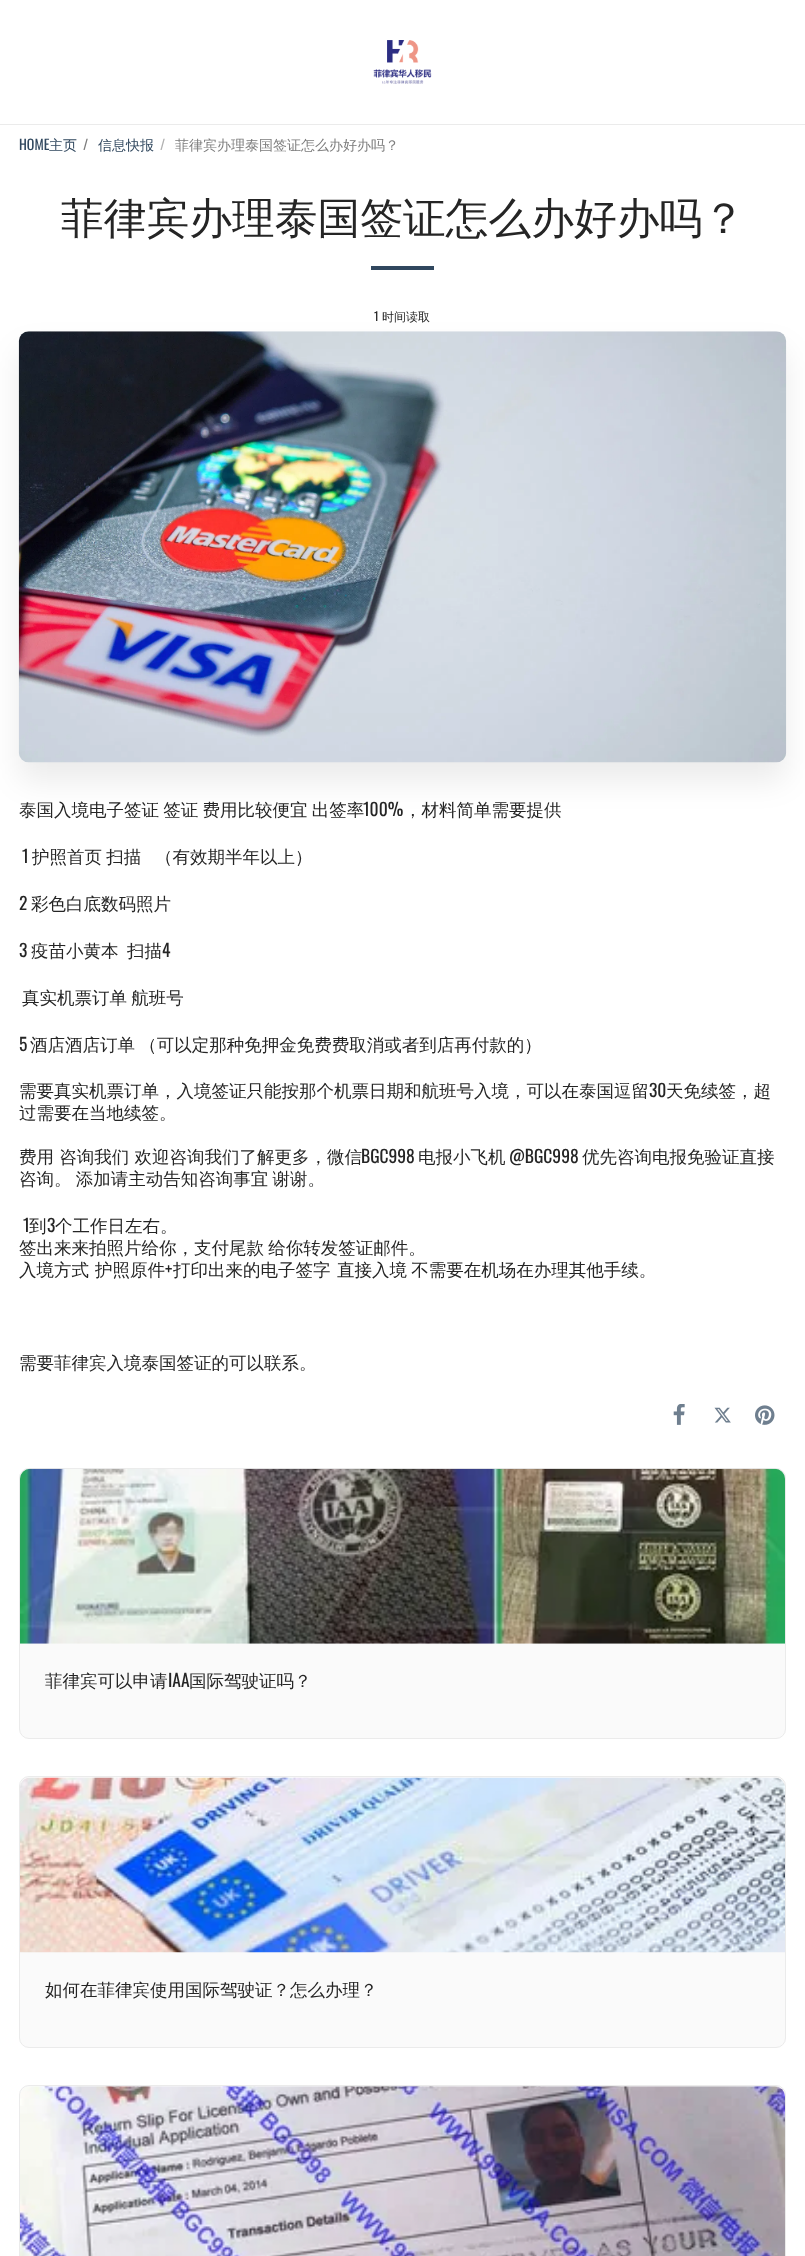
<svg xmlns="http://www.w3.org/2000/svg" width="805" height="2256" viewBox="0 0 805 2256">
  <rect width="100%" height="100%" fill="#fff"/>
  <path d="M0 124h805v1H0z" fill="#ebebeb"/>
  <image x="373" y="40" width="59" height="44" href="img/1.png"/>
  <path d="M371 266h63v4H371z" fill="#30475e"/>
  <rect x="19" y="350" width="767" height="431" rx="10" fill="#00000014" filter="blur(15.5px)"/>
  <image x="18" y="331" width="769" height="432" href="img/2.png"/>
  <image x="673" y="1404" width="12" height="21" href="img/3.png"/>
  <image x="714" y="1407" width="17" height="16" href="img/4.png"/>
  <image x="755" y="1405" width="20" height="20" href="img/5.png"/>
  <rect x="19.5" y="1468.5" width="766" height="270" rx="9.5" fill="#fafafa" stroke="#ebebeb"/>
  <image x="20" y="1468" width="765" height="176" href="img/6.png"/>
  <rect x="19.5" y="1776.5" width="766" height="271" rx="9.5" fill="#fafafa" stroke="#ebebeb"/>
  <image x="20" y="1777" width="765" height="176" href="img/7.png"/>
  <rect x="19.5" y="2085.5" width="766" height="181" rx="9.5" fill="#fafafa" stroke="#ebebeb"/>
  <image x="20" y="2086" width="765" height="170" href="img/8.png"/>
  <text x="19" y="150" font-family="Oswald" font-size="14" fill="#30475e">HOME</text>
  <text x="49" y="150" font-family="WenQuanYi Zen Hei" font-size="14" font-weight="500" fill="#30475e">主页</text>
  <text x="83" y="150" font-family="Oswald" font-size="14" fill="#7c7c7c">/</text>
  <text x="98" y="150" font-family="WenQuanYi Zen Hei" font-size="14" font-weight="500" fill="#30475e">信息快报</text>
  <text x="160" y="150" font-family="Oswald" font-size="14" fill="#b1b1b1">/</text>
  <text x="175" y="150" font-family="WenQuanYi Zen Hei" font-size="14" font-weight="500" fill="#7c7c7c">菲律宾办理泰国签证怎么办好办吗？</text>
  <text x="61" y="233" font-family="WenQuanYi Zen Hei" font-size="42.75" font-weight="500" fill="#252525">菲律宾办理泰国签证怎么办好办吗？</text>
  <text x="374" y="321" font-family="Oswald" font-size="12" fill="#252525">1</text>
  <text x="382" y="321" font-family="WenQuanYi Zen Hei" font-size="12" font-weight="500" fill="#252525">时间读取</text>
  <text x="19" y="816" word-spacing="-1" font-family="WenQuanYi Zen Hei" font-size="17.5" font-weight="500" fill="#252525">泰国入境电子签证 签证 费用比较便宜 出签率</text>
  <text x="363" y="816" font-family="Oswald" font-size="17.5" fill="#252525">100%</text>
  <text x="404" y="816" font-family="WenQuanYi Zen Hei" font-size="17.5" font-weight="500" fill="#252525">，材料简单需要提供</text>
  <text x="22" y="863" font-family="Oswald" font-size="17.5" fill="#252525">1</text>
  <g font-family="WenQuanYi Zen Hei" font-size="17.5" font-weight="500" fill="#252525">
    <text x="32" y="863" word-spacing="-1">护照首页 扫描</text>
    <text x="155" y="863">（有效期半年以上）</text>
  </g>
  <text x="19" y="910" font-family="Oswald" font-size="17.5" fill="#252525">2</text>
  <text x="31" y="910" font-family="WenQuanYi Zen Hei" font-size="17.5" font-weight="500" fill="#252525">彩色白底数码照片</text>
  <text x="19" y="957" font-family="Oswald" font-size="17.5" fill="#252525">3</text>
  <g font-family="WenQuanYi Zen Hei" font-size="17.5" font-weight="500" fill="#252525">
    <text x="31" y="957">疫苗小黄本</text>
    <text x="127" y="957">扫描</text>
  </g>
  <text x="162" y="957" font-family="Oswald" font-size="17.5" fill="#252525">4</text>
  <text x="22" y="1004" word-spacing="-1" font-family="WenQuanYi Zen Hei" font-size="17.5" font-weight="500" fill="#252525">真实机票订单 航班号</text>
  <text x="19" y="1051" font-family="Oswald" font-size="17.5" fill="#252525">5</text>
  <g font-family="WenQuanYi Zen Hei" font-size="17.5" font-weight="500" fill="#252525">
    <text x="30" y="1051" word-spacing="-1">酒店酒店订单 （可以定那种免押金免费费取消或者到店再付款的）</text>
    <text x="19" y="1097">需要真实机票订单，入境签证只能按那个机票日期和航班号入境，可以在泰国逗留</text>
  </g>
  <text x="649" y="1097" font-family="Oswald" font-size="17.5" fill="#252525">30</text>
  <g font-family="WenQuanYi Zen Hei" font-size="17.5" font-weight="500" fill="#252525">
    <text x="666" y="1097">天免续签，超</text>
    <text x="19" y="1119">过需要在当地续签。</text>
    <text x="19" y="1163">费用 咨询我们 欢迎咨询我们了解更多，微信</text>
  </g>
  <text x="361" y="1163" font-family="Oswald" font-size="17.5" fill="#252525">BGC998</text>
  <text x="418" y="1163" font-family="WenQuanYi Zen Hei" font-size="17.5" font-weight="500" fill="#252525">电报小飞机</text>
  <text x="509" y="1163" font-family="Oswald" font-size="17.5" fill="#252525">@BGC998</text>
  <g font-family="WenQuanYi Zen Hei" font-size="17.5" font-weight="500" fill="#252525">
    <text x="582" y="1163">优先咨询电报免验证直接</text>
    <text x="19" y="1185" word-spacing="-1">咨询。 添加请主动告知咨询事宜 谢谢。</text>
  </g>
  <text x="23" y="1232" font-family="Oswald" font-size="17.5" fill="#252525">1</text>
  <text x="29" y="1232" font-family="WenQuanYi Zen Hei" font-size="17.5" font-weight="500" fill="#252525">到</text>
  <text x="47" y="1232" font-family="Oswald" font-size="17.5" fill="#252525">3</text>
  <g font-family="WenQuanYi Zen Hei" font-size="17.5" font-weight="500" fill="#252525">
    <text x="55" y="1232">个工作日左右。</text>
    <text x="19" y="1254" word-spacing="-1">签出来来拍照片给你，支付尾款 给你转发签证邮件。</text>
    <text x="19" y="1276">入境方式</text>
    <text x="95" y="1276">护照原件</text>
  </g>
  <text x="165" y="1276" font-family="Oswald" font-size="17.5" fill="#252525">+</text>
  <g font-family="WenQuanYi Zen Hei" font-size="17.5" font-weight="500" fill="#252525">
    <text x="173" y="1276">打印出来的电子签字</text>
    <text x="337" y="1276" word-spacing="-1">直接入境 不需要在机场在办理其他手续。</text>
    <text x="19" y="1369">需要菲律宾入境泰国签证的可以联系。</text>
    <text x="45" y="1687">菲律宾可以申请</text>
  </g>
  <text x="168" y="1687" font-family="Oswald" font-size="17.5" fill="#252525">IAA</text>
  <g font-family="WenQuanYi Zen Hei" font-size="17.5" font-weight="500" fill="#252525">
    <text x="189" y="1687">国际驾驶证吗？</text>
    <text x="45" y="1996">如何在菲律宾使用国际驾驶证？怎么办理？</text>
  </g>
</svg>
